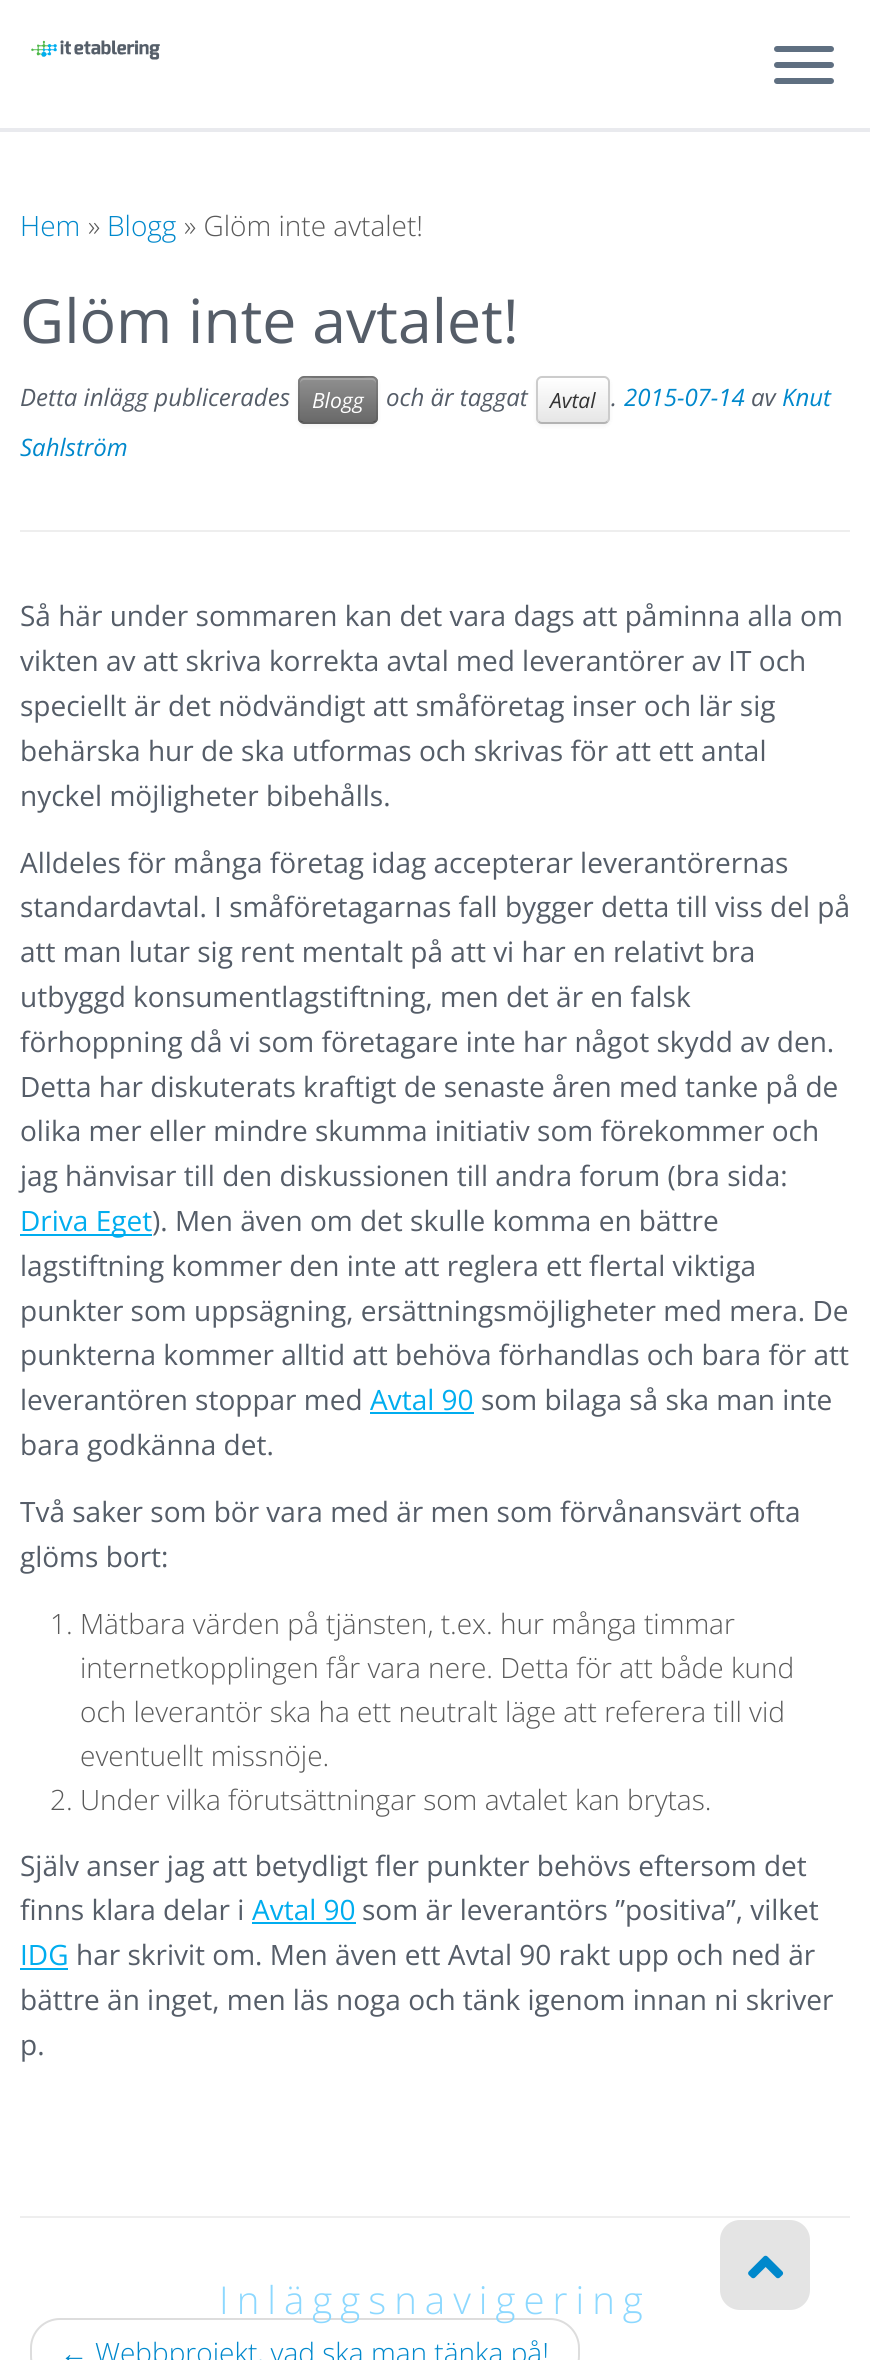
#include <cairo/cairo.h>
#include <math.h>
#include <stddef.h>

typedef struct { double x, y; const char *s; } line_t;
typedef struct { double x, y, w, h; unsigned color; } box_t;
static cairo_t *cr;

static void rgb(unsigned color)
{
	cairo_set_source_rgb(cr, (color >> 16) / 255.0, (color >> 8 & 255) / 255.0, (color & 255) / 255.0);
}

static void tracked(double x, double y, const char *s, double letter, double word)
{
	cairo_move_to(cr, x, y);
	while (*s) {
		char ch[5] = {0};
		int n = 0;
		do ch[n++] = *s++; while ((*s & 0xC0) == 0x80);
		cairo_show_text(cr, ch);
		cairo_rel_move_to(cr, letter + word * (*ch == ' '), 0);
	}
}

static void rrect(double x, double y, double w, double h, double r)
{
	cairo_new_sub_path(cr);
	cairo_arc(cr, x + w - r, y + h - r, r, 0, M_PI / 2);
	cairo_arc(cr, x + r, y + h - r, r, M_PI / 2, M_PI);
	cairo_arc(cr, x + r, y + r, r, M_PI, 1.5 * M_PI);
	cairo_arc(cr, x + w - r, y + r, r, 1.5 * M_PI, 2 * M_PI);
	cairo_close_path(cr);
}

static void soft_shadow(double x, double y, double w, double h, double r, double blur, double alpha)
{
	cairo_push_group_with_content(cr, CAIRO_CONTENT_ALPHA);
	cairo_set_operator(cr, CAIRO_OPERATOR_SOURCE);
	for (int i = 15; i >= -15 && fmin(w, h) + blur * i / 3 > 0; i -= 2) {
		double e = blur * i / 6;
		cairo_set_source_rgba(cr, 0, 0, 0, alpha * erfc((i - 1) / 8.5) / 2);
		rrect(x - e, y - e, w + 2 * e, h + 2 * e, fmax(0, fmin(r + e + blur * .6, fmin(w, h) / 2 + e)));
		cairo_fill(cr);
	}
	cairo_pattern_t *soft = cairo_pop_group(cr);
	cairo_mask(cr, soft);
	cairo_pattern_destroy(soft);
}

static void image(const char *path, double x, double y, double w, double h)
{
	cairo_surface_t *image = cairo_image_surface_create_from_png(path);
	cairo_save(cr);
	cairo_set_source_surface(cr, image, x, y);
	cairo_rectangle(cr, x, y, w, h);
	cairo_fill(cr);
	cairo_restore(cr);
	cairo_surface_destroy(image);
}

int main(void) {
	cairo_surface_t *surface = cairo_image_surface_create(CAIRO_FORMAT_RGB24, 870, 2360);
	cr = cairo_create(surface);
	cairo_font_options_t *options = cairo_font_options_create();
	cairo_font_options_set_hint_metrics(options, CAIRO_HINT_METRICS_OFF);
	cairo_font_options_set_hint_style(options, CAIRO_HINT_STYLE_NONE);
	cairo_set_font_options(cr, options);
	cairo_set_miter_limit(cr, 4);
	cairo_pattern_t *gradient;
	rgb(0xffffff);
	cairo_paint(cr);
	rgb(0xe9eaee);
	cairo_rectangle(cr, 0, 128, 870, 4);
	cairo_fill(cr);
	image("img/1.png", 31, 40, 129, 20);
	rgb(0x5f6f81);
	rrect(774, 46, 60, 6, 3);
	cairo_fill(cr);
	rrect(774, 62, 60, 6, 3);
	cairo_fill(cr);
	rrect(774, 78, 60, 6, 3);
	cairo_fill(cr);
	rgb(0x000000);
	soft_shadow(298, 378, 80, 48, 6, 2, 0.05);
	rgb(0x808080);
	rrect(298, 376, 80, 48, 6);
	cairo_fill(cr);
	cairo_save(cr);
	rrect(298, 376, 80, 48, 6);
	cairo_clip(cr);
	gradient = cairo_pattern_create_linear(338, 378, 338, 422);
	cairo_pattern_add_color_stop_rgba(gradient, 0, 0.561, 0.561, 0.561, 1);
	cairo_pattern_add_color_stop_rgba(gradient, 1, 0.412, 0.412, 0.412, 1);
	cairo_set_source(cr, gradient);
	cairo_pattern_destroy(gradient);
	cairo_rectangle(cr, 298, 378, 80, 44);
	cairo_fill(cr);
	cairo_restore(cr);
	cairo_set_source_rgba(cr, 1, 1, 1, 0.2);
	cairo_new_path(cr);
	cairo_move_to(cr, 304, 380);
	cairo_line_to(cr, 372, 380);
	cairo_curve_to(cr, 374, 380, 376, 382, 376, 384);
	cairo_curve_to(cr, 376, 375, 369, 378, 361, 378);
	cairo_line_to(cr, 315, 378);
	cairo_curve_to(cr, 307, 378, 300, 375, 300, 384);
	cairo_curve_to(cr, 300, 382, 302, 380, 304, 380);
	cairo_close_path(cr);
	cairo_fill(cr);
	cairo_new_path(cr);
	cairo_move_to(cr, 375.5, 421.5);
	cairo_line_to(cr, 372.5, 423);
	cairo_line_to(cr, 303.5, 423);
	cairo_line_to(cr, 300.5, 421.5);
	cairo_set_source_rgba(cr, 0, 0, 0, 0.25);
	cairo_stroke(cr);
	cairo_new_path(cr);
	cairo_move_to(cr, 300.5, 421.5);
	cairo_curve_to(cr, 299.5, 420.5, 299, 419.5, 299, 418);
	cairo_line_to(cr, 299, 382);
	cairo_curve_to(cr, 299, 380.5, 299.5, 379.5, 300.5, 378.5);
	cairo_curve_to(cr, 301.5, 377.5, 302.5, 377, 304, 377);
	cairo_line_to(cr, 372, 377);
	cairo_curve_to(cr, 373.5, 377, 374.5, 377.5, 375.5, 378.5);
	cairo_curve_to(cr, 376.5, 379.5, 377, 380.5, 377, 382);
	cairo_line_to(cr, 377, 418);
	cairo_curve_to(cr, 377, 419.5, 376.5, 420.5, 375.5, 421.5);
	cairo_set_source_rgba(cr, 0, 0, 0, 0.1);
	cairo_stroke(cr);
	rgb(0x000000);
	soft_shadow(536, 378, 74, 48, 6, 2, 0.05);
	cairo_save(cr);
	rrect(536, 376, 74, 48, 6);
	cairo_clip(cr);
	gradient = cairo_pattern_create_linear(573, 378, 573, 422);
	cairo_pattern_add_color_stop_rgba(gradient, 0, 1, 1, 1, 1);
	cairo_pattern_add_color_stop_rgba(gradient, 1, 0.902, 0.902, 0.902, 1);
	cairo_set_source(cr, gradient);
	cairo_pattern_destroy(gradient);
	cairo_rectangle(cr, 536, 378, 74, 44);
	cairo_fill(cr);
	cairo_restore(cr);
	cairo_new_path(cr);
	cairo_move_to(cr, 607.5, 421.5);
	cairo_curve_to(cr, 606.5, 422.5, 605.5, 423, 604, 423);
	cairo_line_to(cr, 542, 423);
	cairo_curve_to(cr, 540.5, 423, 539.5, 422.5, 538.5, 421.5);
	rgb(0xb3b3b3);
	cairo_stroke(cr);
	cairo_new_path(cr);
	cairo_move_to(cr, 538.5, 421.5);
	cairo_curve_to(cr, 537.5, 420.5, 537, 419.5, 537, 418);
	cairo_line_to(cr, 537, 382);
	cairo_curve_to(cr, 537, 380.5, 537.5, 379.5, 538.5, 378.5);
	cairo_curve_to(cr, 539.5, 377.5, 540.5, 377, 542, 377);
	cairo_line_to(cr, 604, 377);
	cairo_curve_to(cr, 605.5, 377, 606.5, 377.5, 607.5, 378.5);
	cairo_curve_to(cr, 608.5, 379.5, 609, 380.5, 609, 382);
	cairo_line_to(cr, 609, 418);
	cairo_curve_to(cr, 609, 419.5, 608.5, 420.5, 607.5, 421.5);
	rgb(0xcccccc);
	cairo_stroke(cr);
	{
		static const box_t items[] = {
			{20, 530, 830, 2, 0xeeeeee},
			{20, 1234, 132, 2, 0x00adef},
			{370, 1412, 104, 2, 0x00adef},
			{252, 1922, 104, 2, 0x00adef},
			{20, 1968, 48, 2, 0x00adef},
			{20, 2216, 830, 2, 0xeeeeee},
		};
		for (size_t i = 0; i < sizeof items / sizeof *items; i++) {
			rgb(items[i].color);
			cairo_rectangle(cr, items[i].x, items[i].y, items[i].w, items[i].h);
			cairo_fill(cr);
		}
	}
	rrect(31, 2319, 548, 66, 29);
	rgb(0xdddddd);
	cairo_stroke(cr);
	rgb(0xe4e4e4);
	rrect(720, 2220, 90, 90, 20);
	cairo_fill(cr);
	image("img/2.png", 748, 2255, 36, 24);
	cairo_select_font_face(cr, "Open Sans Light", CAIRO_FONT_SLANT_NORMAL, CAIRO_FONT_WEIGHT_NORMAL);
	cairo_set_font_size(cr, 28);
	rgb(0x0088cc);
	cairo_move_to(cr, 20, 236);
	cairo_show_text(cr, "Hem");
	rgb(0x5a5a5a);
	cairo_move_to(cr, 88, 236);
	cairo_show_text(cr, "»");
	rgb(0x0088cc);
	cairo_move_to(cr, 107, 236);
	cairo_show_text(cr, "Blogg");
	rgb(0x5a5a5a);
	cairo_move_to(cr, 184, 236);
	cairo_show_text(cr, "» Glöm inte avtalet!");
	cairo_select_font_face(cr, "Open Sans", CAIRO_FONT_SLANT_NORMAL, CAIRO_FONT_WEIGHT_NORMAL);
	cairo_set_font_size(cr, 60.75);
	rgb(0x555d68);
	cairo_move_to(cr, 20, 343);
	cairo_show_text(cr, "Glöm inte avtalet!");
	cairo_select_font_face(cr, "Open Sans", CAIRO_FONT_SLANT_ITALIC, CAIRO_FONT_WEIGHT_NORMAL);
	cairo_set_font_size(cr, 24);
	cairo_move_to(cr, 20, 406);
	cairo_show_text(cr, "Detta inlägg publicerades");
	cairo_set_font_size(cr, 21);
	rgb(0xffffff);
	cairo_move_to(cr, 312, 408);
	cairo_show_text(cr, "Blogg");
	cairo_set_font_size(cr, 24);
	rgb(0x555d68);
	cairo_move_to(cr, 386, 406);
	cairo_show_text(cr, "och är taggat");
	cairo_set_font_size(cr, 21);
	rgb(0x333333);
	cairo_move_to(cr, 550, 408);
	cairo_show_text(cr, "Avtal");
	cairo_set_font_size(cr, 24);
	rgb(0x555d68);
	cairo_move_to(cr, 611, 406);
	cairo_show_text(cr, ".");
	rgb(0x0088cc);
	cairo_move_to(cr, 624, 406);
	cairo_show_text(cr, "2015-07-14");
	rgb(0x555d68);
	cairo_move_to(cr, 751, 406);
	cairo_show_text(cr, "av");
	rgb(0x0088cc);
	cairo_move_to(cr, 782, 406);
	cairo_show_text(cr, "Knut");
	cairo_move_to(cr, 20, 456);
	cairo_show_text(cr, "Sahlström");
	cairo_select_font_face(cr, "Open Sans", CAIRO_FONT_SLANT_NORMAL, CAIRO_FONT_WEIGHT_NORMAL);
	cairo_set_font_size(cr, 28);
	rgb(0x555d68);
	{
		static const line_t items[] = {
			{20, 626, "Så här under sommaren kan det vara dags att påminna alla om"},
			{20, 671, "vikten av att skriva korrekta avtal med leverantörer av IT och"},
			{20, 716, "speciellt är det nödvändigt att småföretag inser och lär sig"},
			{20, 761, "behärska hur de ska utformas och skrivas för att ett antal"},
			{20, 806, "nyckel möjligheter bibehålls."},
			{20, 873, "Alldeles för många företag idag accepterar leverantörernas"},
			{20, 917, "standardavtal. I småföretagarnas fall bygger detta till viss del på"},
			{20, 962, "att man lutar sig rent mentalt på att vi har en relativt bra"},
			{20, 1007, "utbyggd konsumentlagstiftning, men det är en falsk"},
			{20, 1052, "förhoppning då vi som företagare inte har något skydd av den."},
			{20, 1097, "Detta har diskuterats kraftigt de senaste åren med tanke på de"},
			{20, 1141, "olika mer eller mindre skumma initiativ som förekommer och"},
			{20, 1186, "jag hänvisar till den diskussionen till andra forum (bra sida:"},
		};
		for (size_t i = 0; i < sizeof items / sizeof *items; i++) {
			cairo_move_to(cr, items[i].x, items[i].y);
			cairo_show_text(cr, items[i].s);
		}
	}
	rgb(0x00adef);
	cairo_move_to(cr, 20, 1231);
	cairo_show_text(cr, "Driva Eget");
	rgb(0x555d68);
	{
		static const line_t items[] = {
			{152, 1231, "). Men även om det skulle komma en bättre"},
			{20, 1276, "lagstiftning kommer den inte att reglera ett flertal viktiga"},
			{20, 1321, "punkter som uppsägning, ersättningsmöjligheter med mera. De"},
			{20, 1365, "punkterna kommer alltid att behöva förhandlas och bara för att"},
			{20, 1410, "leverantören stoppar med"},
		};
		for (size_t i = 0; i < sizeof items / sizeof *items; i++) {
			cairo_move_to(cr, items[i].x, items[i].y);
			cairo_show_text(cr, items[i].s);
		}
	}
	rgb(0x00adef);
	cairo_move_to(cr, 370, 1410);
	cairo_show_text(cr, "Avtal 90");
	rgb(0x555d68);
	{
		static const line_t items[] = {
			{481, 1410, "som bilaga så ska man inte"},
			{20, 1455, "bara godkänna det."},
			{20, 1522, "Två saker som bör vara med är men som förvånansvärt ofta"},
			{20, 1567, "glöms bort:"},
		};
		for (size_t i = 0; i < sizeof items / sizeof *items; i++) {
			cairo_move_to(cr, items[i].x, items[i].y);
			cairo_show_text(cr, items[i].s);
		}
	}
	cairo_select_font_face(cr, "Open Sans Light", CAIRO_FONT_SLANT_NORMAL, CAIRO_FONT_WEIGHT_NORMAL);
	rgb(0x5a5a5a);
	{
		static const line_t items[] = {
			{50, 1634, "1. Mätbara värden på tjänsten, t.ex. hur många timmar"},
			{80, 1678, "internetkopplingen får vara nere. Detta för att både kund"},
			{80, 1722, "och leverantör ska ha ett neutralt läge att referera till vid"},
			{80, 1766, "eventuellt missnöje."},
			{50, 1810, "2. Under vilka förutsättningar som avtalet kan brytas."},
		};
		for (size_t i = 0; i < sizeof items / sizeof *items; i++) {
			cairo_move_to(cr, items[i].x, items[i].y);
			cairo_show_text(cr, items[i].s);
		}
	}
	cairo_select_font_face(cr, "Open Sans", CAIRO_FONT_SLANT_NORMAL, CAIRO_FONT_WEIGHT_NORMAL);
	rgb(0x555d68);
	cairo_move_to(cr, 20, 1876);
	cairo_show_text(cr, "Själv anser jag att betydligt fler punkter behövs eftersom det");
	cairo_move_to(cr, 20, 1920);
	cairo_show_text(cr, "finns klara delar i");
	rgb(0x00adef);
	cairo_move_to(cr, 252, 1920);
	cairo_show_text(cr, "Avtal 90");
	rgb(0x555d68);
	cairo_move_to(cr, 362, 1920);
	cairo_show_text(cr, "som är leverantörs ”positiva”, vilket");
	rgb(0x00adef);
	cairo_move_to(cr, 20, 1965);
	cairo_show_text(cr, "IDG");
	rgb(0x555d68);
	{
		static const line_t items[] = {
			{76, 1965, "har skrivit om. Men även ett Avtal 90 rakt upp och ned är"},
			{20, 2010, "bättre än inget, men läs noga och tänk igenom innan ni skriver"},
			{20, 2055, "p."},
		};
		for (size_t i = 0; i < sizeof items / sizeof *items; i++) {
			cairo_move_to(cr, items[i].x, items[i].y);
			cairo_show_text(cr, items[i].s);
		}
	}
	cairo_select_font_face(cr, "Open Sans Light", CAIRO_FONT_SLANT_NORMAL, CAIRO_FONT_WEIGHT_NORMAL);
	cairo_set_font_size(cr, 38.4);
	rgb(0x8cd8ff);
	tracked(219, 2314, "Inläggsnavigering", 8, 0);
	cairo_select_font_face(cr, "Liberation Serif", CAIRO_FONT_SLANT_NORMAL, CAIRO_FONT_WEIGHT_NORMAL);
	cairo_set_font_size(cr, 28);
	rgb(0x0088cc);
	cairo_move_to(cr, 60, 2363);
	cairo_show_text(cr, "←");
	cairo_select_font_face(cr, "Open Sans Light", CAIRO_FONT_SLANT_NORMAL, CAIRO_FONT_WEIGHT_NORMAL);
	cairo_move_to(cr, 95, 2363);
	cairo_show_text(cr, "Webbprojekt, vad ska man tänka på!");
	cairo_surface_write_to_png(surface, "page.png");
	cairo_font_options_destroy(options);
	cairo_destroy(cr);
	cairo_surface_destroy(surface);
	return 0;
}
